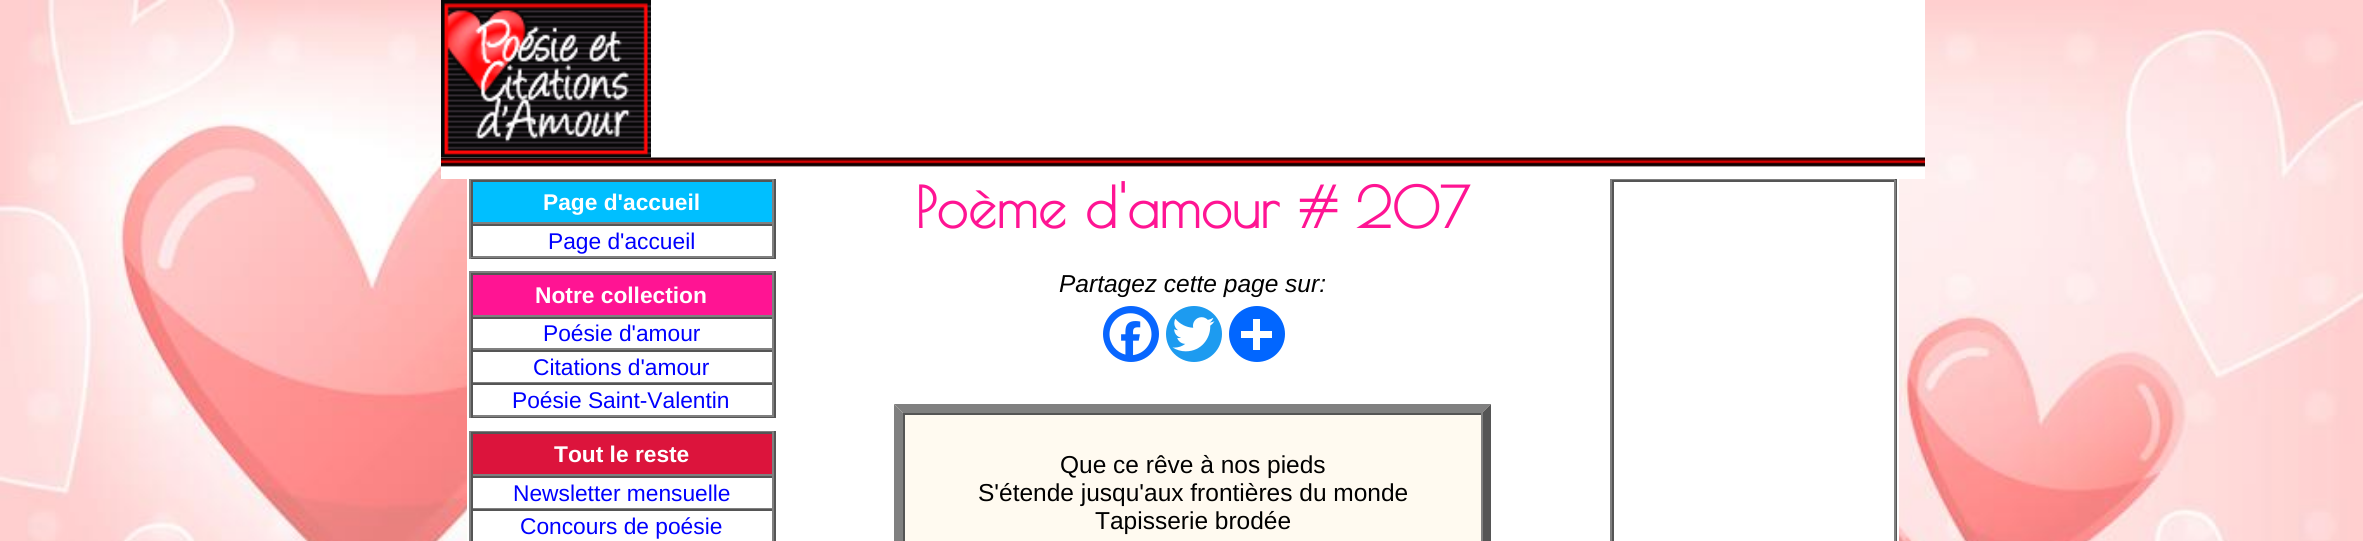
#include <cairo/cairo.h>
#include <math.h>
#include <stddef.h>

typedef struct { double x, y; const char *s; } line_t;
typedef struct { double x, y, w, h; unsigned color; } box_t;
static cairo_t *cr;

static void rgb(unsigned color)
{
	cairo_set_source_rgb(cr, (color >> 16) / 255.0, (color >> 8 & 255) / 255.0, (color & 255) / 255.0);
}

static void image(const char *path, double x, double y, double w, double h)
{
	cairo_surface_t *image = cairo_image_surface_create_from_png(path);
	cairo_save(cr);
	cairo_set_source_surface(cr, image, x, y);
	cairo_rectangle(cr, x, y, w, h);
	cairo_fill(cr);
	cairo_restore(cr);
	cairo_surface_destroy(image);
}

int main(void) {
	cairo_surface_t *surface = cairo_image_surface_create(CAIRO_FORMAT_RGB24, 2363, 541);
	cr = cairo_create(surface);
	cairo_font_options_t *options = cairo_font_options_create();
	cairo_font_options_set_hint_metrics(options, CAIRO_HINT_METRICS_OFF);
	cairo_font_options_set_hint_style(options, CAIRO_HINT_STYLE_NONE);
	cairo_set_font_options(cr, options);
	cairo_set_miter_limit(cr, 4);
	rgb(0xffffff);
	cairo_paint(cr);
	image("img/1.png", 0, 0, 2363, 541);
	rgb(0xffffff);
	cairo_rectangle(cr, 441, 0, 1484, 179);
	cairo_fill(cr);
	image("img/2.png", 441, 0, 210, 158);
	image("img/3.png", 441, 157, 1484, 10);
	{
		static const box_t items[] = {
			{467, 179, 1432, 362, 0xffffff},
			{469, 179, 306, 1, 0x808080},
			{774, 179, 2, 80, 0x555555},
			{469, 257, 306, 2, 0x555555},
			{469, 179, 2, 80, 0x808080},
			{473, 182, 299, 40, 0x00bfff},
			{471, 180, 303, 2, 0x555555},
			{772, 180, 2, 44, 0x808080},
			{471, 222, 303, 2, 0x808080},
			{471, 180, 2, 44, 0x555555},
			{471, 224, 303, 2, 0x555555},
			{772, 224, 2, 33, 0x808080},
			{471, 256, 303, 2, 0x808080},
			{471, 224, 2, 33, 0x555555},
			{469, 271, 306, 2, 0x808080},
			{774, 271, 2, 147, 0x555555},
			{469, 417, 306, 1, 0x555555},
			{469, 271, 2, 147, 0x808080},
			{473, 275, 299, 40, 0xff1493},
			{471, 273, 303, 2, 0x555555},
			{772, 273, 2, 44, 0x808080},
			{471, 315, 303, 2, 0x808080},
			{471, 273, 2, 44, 0x555555},
			{471, 317, 303, 2, 0x555555},
			{772, 317, 2, 33, 0x808080},
			{471, 348, 303, 2, 0x808080},
			{471, 317, 2, 33, 0x555555},
			{471, 350, 303, 2, 0x555555},
			{772, 350, 2, 33, 0x808080},
			{471, 382, 303, 1, 0x808080},
			{471, 350, 2, 33, 0x555555},
			{471, 383, 303, 2, 0x555555},
			{772, 383, 2, 34, 0x808080},
			{471, 415, 303, 2, 0x808080},
			{471, 383, 2, 34, 0x555555},
			{469, 431, 306, 1, 0x808080},
			{774, 431, 2, 110, 0x555555},
			{469, 431, 2, 110, 0x808080},
			{473, 434, 299, 40, 0xdc143c},
			{471, 432, 303, 2, 0x555555},
			{772, 432, 2, 44, 0x808080},
			{471, 474, 303, 2, 0x808080},
			{471, 432, 2, 44, 0x555555},
			{471, 476, 303, 2, 0x555555},
			{772, 476, 2, 33, 0x808080},
			{471, 508, 303, 1, 0x808080},
			{471, 476, 2, 33, 0x555555},
			{471, 509, 303, 2, 0x555555},
			{772, 509, 2, 32, 0x808080},
			{471, 509, 2, 32, 0x555555},
		};
		for (size_t i = 0; i < sizeof items / sizeof *items; i++) {
			rgb(items[i].color);
			cairo_rectangle(cr, items[i].x, items[i].y, items[i].w, items[i].h);
			cairo_fill(cr);
		}
	}
	rgb(0x0866ff);
	cairo_arc(cr, 1131, 334, 28, 0, 2 * M_PI);
	cairo_fill(cr);
	image("img/4.png", 1109, 313, 43, 43);
	rgb(0x1d9bf0);
	cairo_arc(cr, 1194, 334, 28, 0, 2 * M_PI);
	cairo_fill(cr);
	image("img/5.png", 1172, 317, 43, 35);
	rgb(0x0166ff);
	cairo_arc(cr, 1257, 334, 28, 0, 2 * M_PI);
	cairo_fill(cr);
	{
		static const box_t items[] = {
			{1253, 319, 7, 31, 0xffffff},
			{1241, 331, 31, 7, 0xffffff},
			{894, 404, 597, 137, 0xfffaf0},
		};
		for (size_t i = 0; i < sizeof items / sizeof *items; i++) {
			rgb(items[i].color);
			cairo_rectangle(cr, items[i].x, items[i].y, items[i].w, items[i].h);
			cairo_fill(cr);
		}
	}
	rgb(0x808080);
	cairo_new_path(cr);
	cairo_move_to(cr, 894, 404);
	cairo_line_to(cr, 1491, 404);
	cairo_line_to(cr, 1482, 413);
	cairo_line_to(cr, 903, 413);
	cairo_close_path(cr);
	cairo_fill(cr);
	rgb(0x555555);
	cairo_new_path(cr);
	cairo_move_to(cr, 1491, 404);
	cairo_line_to(cr, 1491, 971);
	cairo_line_to(cr, 1482, 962);
	cairo_line_to(cr, 1482, 413);
	cairo_close_path(cr);
	cairo_fill(cr);
	rgb(0x808080);
	cairo_new_path(cr);
	cairo_move_to(cr, 894, 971);
	cairo_line_to(cr, 894, 404);
	cairo_line_to(cr, 903, 413);
	cairo_line_to(cr, 903, 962);
	cairo_close_path(cr);
	cairo_fill(cr);
	{
		static const box_t items[] = {
			{903, 413, 579, 2, 0x555555},
			{1481, 413, 2, 128, 0x808080},
			{903, 413, 2, 128, 0x555555},
			{1610, 179, 287, 1, 0x808080},
			{1895, 179, 2, 362, 0x555555},
			{1610, 179, 2, 362, 0x808080},
			{1612, 180, 283, 2, 0x555555},
			{1894, 180, 2, 361, 0x808080},
			{1612, 180, 2, 361, 0x555555},
		};
		for (size_t i = 0; i < sizeof items / sizeof *items; i++) {
			rgb(items[i].color);
			cairo_rectangle(cr, items[i].x, items[i].y, items[i].w, items[i].h);
			cairo_fill(cr);
		}
	}
	cairo_select_font_face(cr, "Liberation Sans", CAIRO_FONT_SLANT_NORMAL, CAIRO_FONT_WEIGHT_BOLD);
	cairo_set_font_size(cr, 22.75);
	rgb(0xffffff);
	cairo_move_to(cr, 543, 210);
	cairo_show_text(cr, "Page d'accueil");
	cairo_select_font_face(cr, "Liberation Sans", CAIRO_FONT_SLANT_NORMAL, CAIRO_FONT_WEIGHT_NORMAL);
	rgb(0x0000ff);
	cairo_move_to(cr, 548, 249);
	cairo_show_text(cr, "Page d'accueil");
	cairo_select_font_face(cr, "Liberation Sans", CAIRO_FONT_SLANT_NORMAL, CAIRO_FONT_WEIGHT_BOLD);
	rgb(0xffffff);
	cairo_move_to(cr, 535, 303);
	cairo_show_text(cr, "Notre collection");
	cairo_select_font_face(cr, "Liberation Sans", CAIRO_FONT_SLANT_NORMAL, CAIRO_FONT_WEIGHT_NORMAL);
	rgb(0x0000ff);
	{
		static const line_t items[] = {
			{543, 341, "Poésie d'amour"},
			{533, 375, "Citations d'amour"},
			{512, 408, "Poésie Saint-Valentin"},
		};
		for (size_t i = 0; i < sizeof items / sizeof *items; i++) {
			cairo_move_to(cr, items[i].x, items[i].y);
			cairo_show_text(cr, items[i].s);
		}
	}
	cairo_select_font_face(cr, "Liberation Sans", CAIRO_FONT_SLANT_NORMAL, CAIRO_FONT_WEIGHT_BOLD);
	rgb(0xffffff);
	cairo_move_to(cr, 554, 462);
	cairo_show_text(cr, "Tout le reste");
	cairo_select_font_face(cr, "Liberation Sans", CAIRO_FONT_SLANT_NORMAL, CAIRO_FONT_WEIGHT_NORMAL);
	rgb(0x0000ff);
	cairo_move_to(cr, 513, 501);
	cairo_show_text(cr, "Newsletter mensuelle");
	cairo_move_to(cr, 520, 534);
	cairo_show_text(cr, "Concours de poésie");
	cairo_select_font_face(cr, "Poiret One", CAIRO_FONT_SLANT_NORMAL, CAIRO_FONT_WEIGHT_BOLD);
	cairo_set_font_size(cr, 56);
	rgb(0xff1493);
	cairo_move_to(cr, 915, 228);
	cairo_show_text(cr, "Poème d'amour # 207");
	cairo_select_font_face(cr, "Liberation Sans", CAIRO_FONT_SLANT_ITALIC, CAIRO_FONT_WEIGHT_NORMAL);
	cairo_set_font_size(cr, 24.5);
	rgb(0x000000);
	cairo_move_to(cr, 1059, 292);
	cairo_show_text(cr, "Partagez cette page sur:");
	cairo_select_font_face(cr, "Liberation Sans", CAIRO_FONT_SLANT_NORMAL, CAIRO_FONT_WEIGHT_NORMAL);
	{
		static const line_t items[] = {
			{1060, 473, "Que ce rêve à nos pieds"},
			{978, 501, "S'étende jusqu'aux frontières du monde"},
			{1095, 529, "Tapisserie brodée"},
		};
		for (size_t i = 0; i < sizeof items / sizeof *items; i++) {
			cairo_move_to(cr, items[i].x, items[i].y);
			cairo_show_text(cr, items[i].s);
		}
	}
	cairo_surface_write_to_png(surface, "page.png");
	cairo_font_options_destroy(options);
	cairo_destroy(cr);
	cairo_surface_destroy(surface);
	return 0;
}
